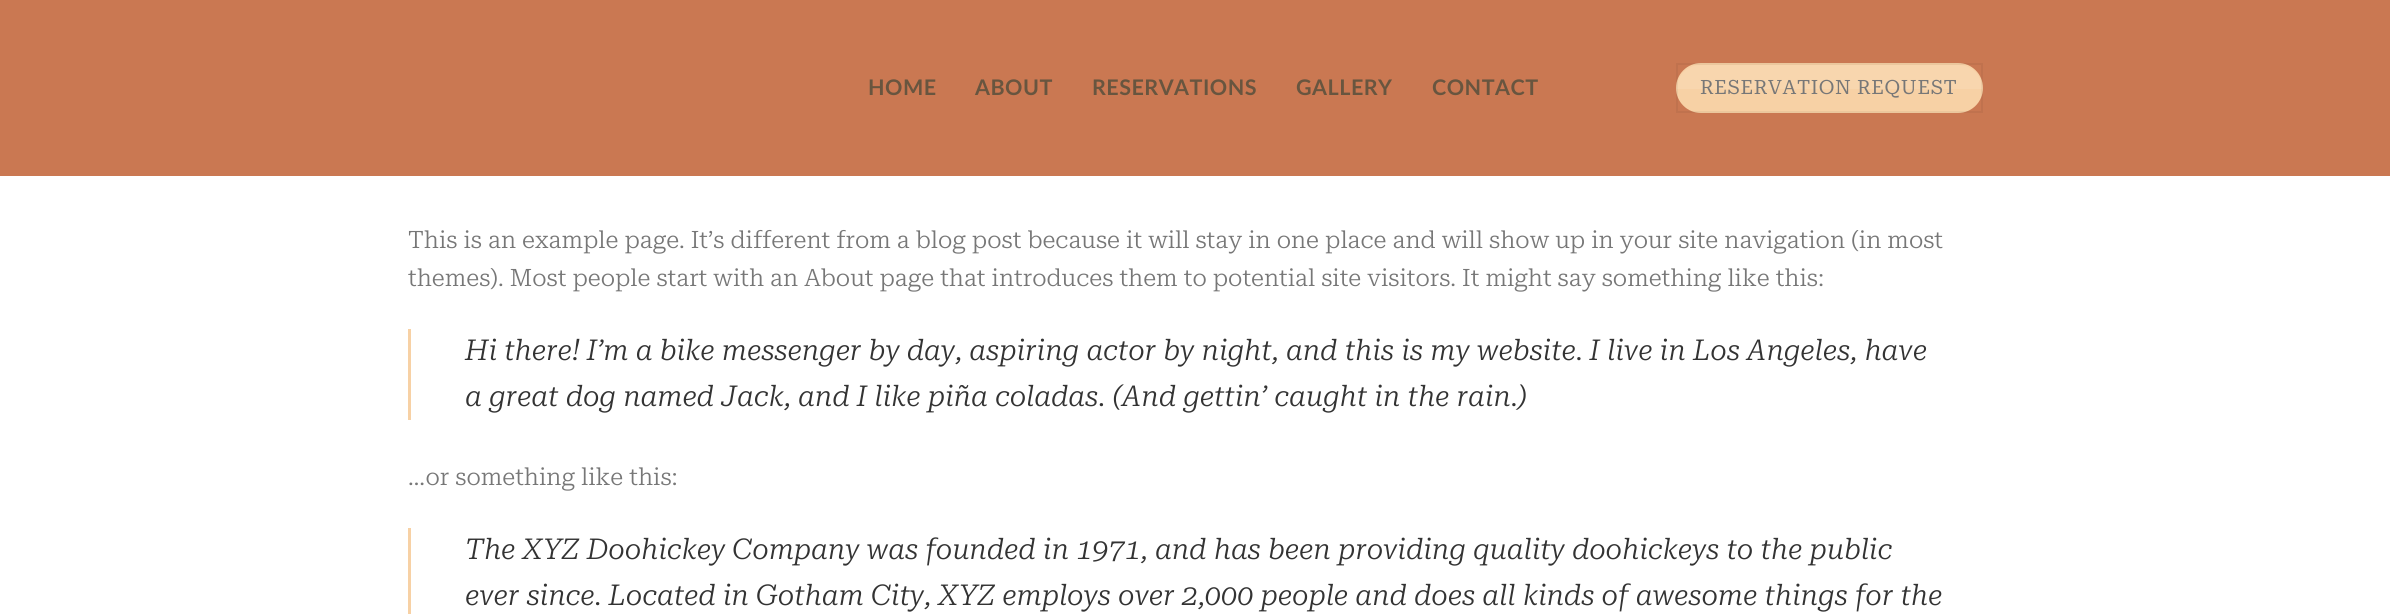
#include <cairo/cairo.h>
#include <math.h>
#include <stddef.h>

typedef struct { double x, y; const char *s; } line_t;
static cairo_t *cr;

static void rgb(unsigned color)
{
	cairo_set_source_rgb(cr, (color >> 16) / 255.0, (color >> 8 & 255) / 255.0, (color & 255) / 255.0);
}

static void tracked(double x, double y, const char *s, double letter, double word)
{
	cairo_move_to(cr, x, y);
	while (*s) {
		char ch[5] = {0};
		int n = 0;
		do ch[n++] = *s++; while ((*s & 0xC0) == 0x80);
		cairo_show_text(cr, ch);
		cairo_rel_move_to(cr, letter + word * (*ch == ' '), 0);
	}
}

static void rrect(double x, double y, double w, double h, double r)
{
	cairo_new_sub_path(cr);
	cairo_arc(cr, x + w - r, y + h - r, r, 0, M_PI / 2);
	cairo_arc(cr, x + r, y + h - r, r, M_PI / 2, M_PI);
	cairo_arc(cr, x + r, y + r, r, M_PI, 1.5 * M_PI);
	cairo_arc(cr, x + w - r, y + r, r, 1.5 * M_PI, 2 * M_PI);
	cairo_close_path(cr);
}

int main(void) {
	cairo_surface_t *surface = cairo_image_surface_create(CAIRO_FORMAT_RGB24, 2390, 614);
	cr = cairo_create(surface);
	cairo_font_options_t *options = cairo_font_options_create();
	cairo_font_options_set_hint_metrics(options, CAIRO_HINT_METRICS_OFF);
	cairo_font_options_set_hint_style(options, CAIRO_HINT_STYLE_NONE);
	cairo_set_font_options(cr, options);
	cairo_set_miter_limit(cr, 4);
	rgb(0xffffff);
	cairo_paint(cr);
	rgb(0xca7852);
	cairo_rectangle(cr, 0, 0, 2390, 176);
	cairo_fill(cr);
	rgb(0xf7d1a5);
	rrect(1676, 63, 307, 50, 25);
	cairo_fill(cr);
	cairo_rectangle(cr, 1677, 64, 305, 48);
	cairo_set_source_rgba(cr, 0, 0, 0, 0.05);
	cairo_stroke(cr);
	cairo_set_source_rgba(cr, 1, 1, 1, 0.1);
	cairo_new_path(cr);
	cairo_move_to(cr, 1700, 65);
	cairo_line_to(cr, 1959, 65);
	cairo_curve_to(cr, 1971.5, 65, 1982, 75.5, 1982, 88);
	cairo_line_to(cr, 1982, 89);
	cairo_line_to(cr, 1677, 89);
	cairo_line_to(cr, 1677, 88);
	cairo_curve_to(cr, 1677, 75.5, 1687.5, 65, 1700, 65);
	cairo_close_path(cr);
	cairo_fill(cr);
	rgb(0xf7d1a5);
	cairo_rectangle(cr, 408, 329, 3, 91);
	cairo_fill(cr);
	cairo_rectangle(cr, 408, 528, 3, 86);
	cairo_fill(cr);
	cairo_select_font_face(cr, "Lato", CAIRO_FONT_SLANT_NORMAL, CAIRO_FONT_WEIGHT_BOLD);
	cairo_set_font_size(cr, 21.5);
	rgb(0x68553f);
	{
		static const line_t items[] = {
			{868, 95, "HOME"},
			{975, 95, "ABOUT"},
			{1092, 95, "RESERVATIONS"},
			{1296, 95, "GALLERY"},
			{1432, 95, "CONTACT"},
		};
		for (size_t i = 0; i < sizeof items / sizeof *items; i++) {
			tracked(items[i].x, items[i].y, items[i].s, 0.5, 0);
		}
	}
	cairo_select_font_face(cr, "Roboto Serif", CAIRO_FONT_SLANT_NORMAL, CAIRO_FONT_WEIGHT_NORMAL);
	cairo_set_font_size(cr, 19.75);
	rgb(0x777777);
	tracked(1700, 94, "RESERVATION REQUEST", 0.6, 0);
	cairo_select_font_face(cr, "Roboto Serif Light", CAIRO_FONT_SLANT_NORMAL, CAIRO_FONT_WEIGHT_NORMAL);
	cairo_set_font_size(cr, 24);
	cairo_move_to(cr, 408, 248);
	cairo_show_text(cr, "This is an example page. It’s different from a blog post because it will stay in one place and will show up in your site navigation (in most");
	cairo_move_to(cr, 408, 286);
	cairo_show_text(cr, "themes). Most people start with an About page that introduces them to potential site visitors. It might say something like this:");
	cairo_select_font_face(cr, "Roboto Serif Light", CAIRO_FONT_SLANT_ITALIC, CAIRO_FONT_WEIGHT_NORMAL);
	cairo_set_font_size(cr, 28.8);
	rgb(0x333333);
	cairo_move_to(cr, 465, 360);
	cairo_show_text(cr, "Hi there! I’m a bike messenger by day, aspiring actor by night, and this is my website. I live in Los Angeles, have");
	cairo_move_to(cr, 465, 406);
	cairo_show_text(cr, "a great dog named Jack, and I like piña coladas. (And gettin’ caught in the rain.)");
	cairo_select_font_face(cr, "Roboto Serif Light", CAIRO_FONT_SLANT_NORMAL, CAIRO_FONT_WEIGHT_NORMAL);
	cairo_set_font_size(cr, 24);
	rgb(0x777777);
	cairo_move_to(cr, 408, 485);
	cairo_show_text(cr, "…or something like this:");
	cairo_select_font_face(cr, "Roboto Serif Light", CAIRO_FONT_SLANT_ITALIC, CAIRO_FONT_WEIGHT_NORMAL);
	cairo_set_font_size(cr, 28.8);
	rgb(0x333333);
	cairo_move_to(cr, 465, 559);
	cairo_show_text(cr, "The XYZ Doohickey Company was founded in 1971, and has been providing quality doohickeys to the public");
	cairo_move_to(cr, 465, 605);
	cairo_show_text(cr, "ever since. Located in Gotham City, XYZ employs over 2,000 people and does all kinds of awesome things for the");
	cairo_surface_write_to_png(surface, "page.png");
	cairo_font_options_destroy(options);
	cairo_destroy(cr);
	cairo_surface_destroy(surface);
	return 0;
}
